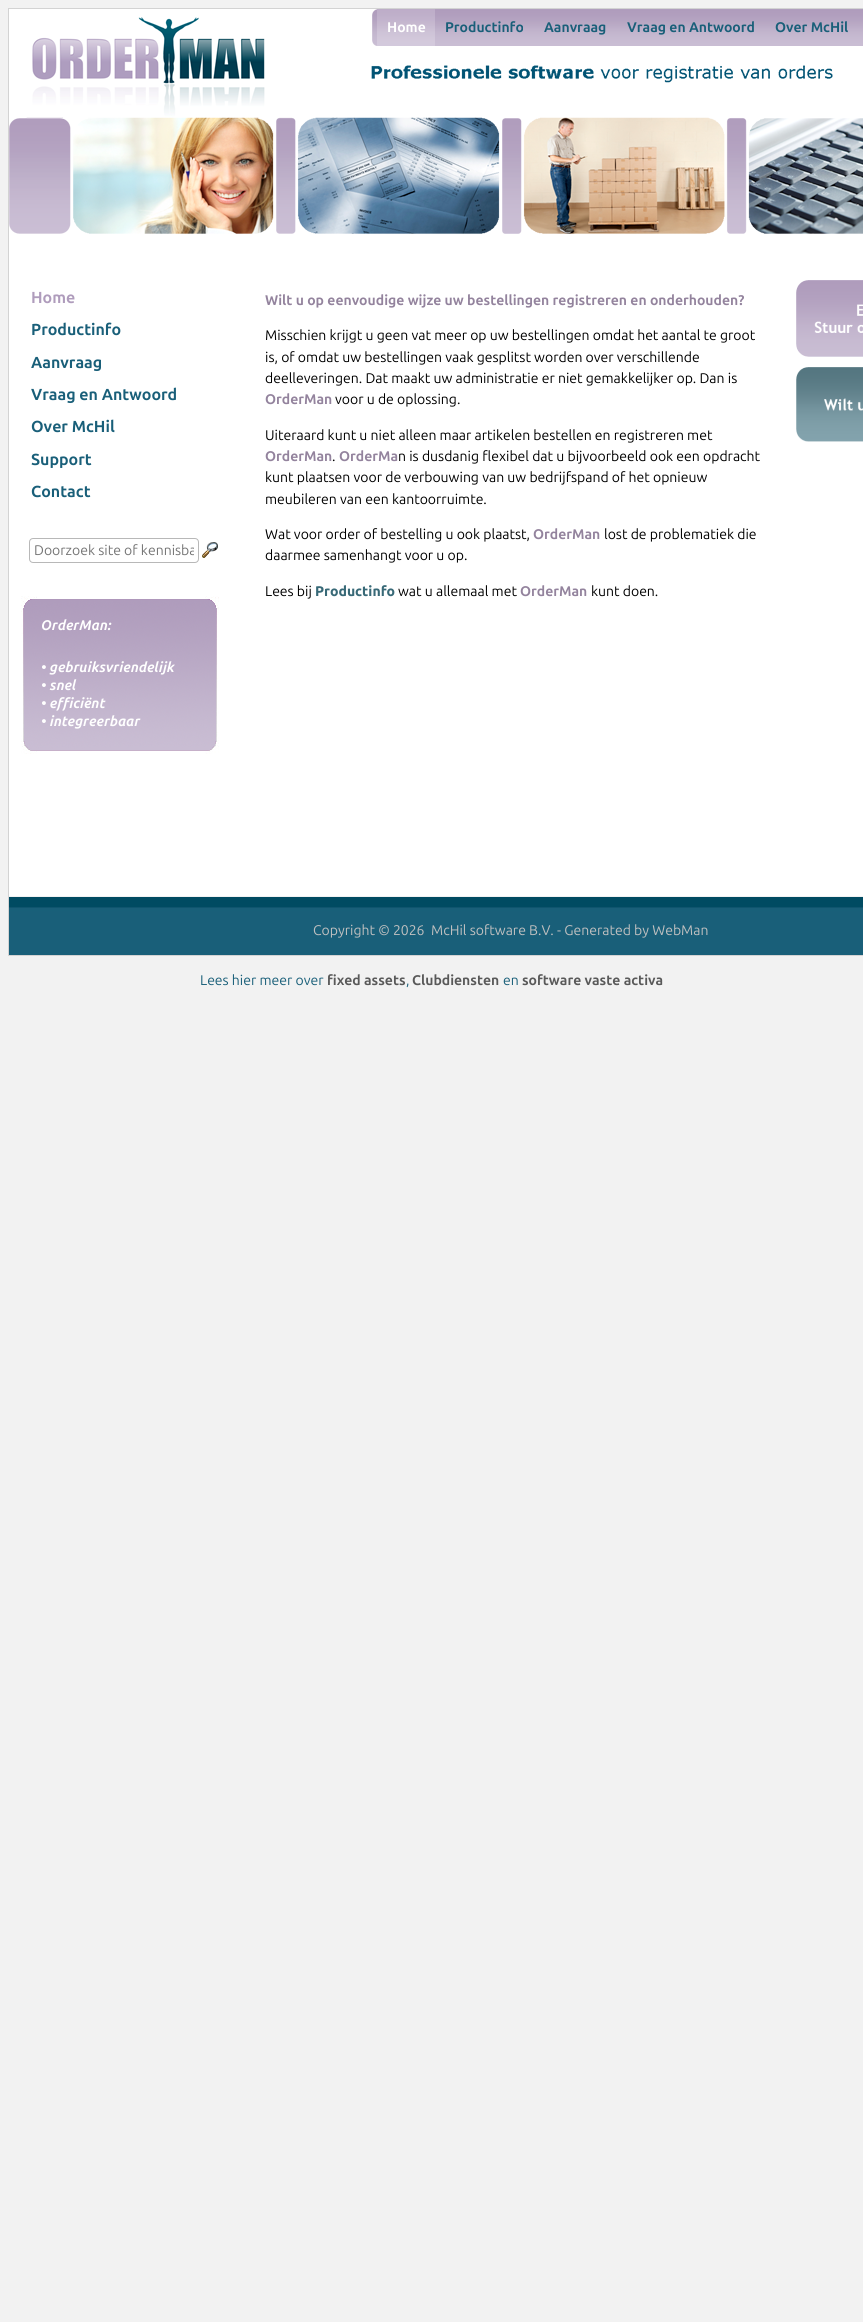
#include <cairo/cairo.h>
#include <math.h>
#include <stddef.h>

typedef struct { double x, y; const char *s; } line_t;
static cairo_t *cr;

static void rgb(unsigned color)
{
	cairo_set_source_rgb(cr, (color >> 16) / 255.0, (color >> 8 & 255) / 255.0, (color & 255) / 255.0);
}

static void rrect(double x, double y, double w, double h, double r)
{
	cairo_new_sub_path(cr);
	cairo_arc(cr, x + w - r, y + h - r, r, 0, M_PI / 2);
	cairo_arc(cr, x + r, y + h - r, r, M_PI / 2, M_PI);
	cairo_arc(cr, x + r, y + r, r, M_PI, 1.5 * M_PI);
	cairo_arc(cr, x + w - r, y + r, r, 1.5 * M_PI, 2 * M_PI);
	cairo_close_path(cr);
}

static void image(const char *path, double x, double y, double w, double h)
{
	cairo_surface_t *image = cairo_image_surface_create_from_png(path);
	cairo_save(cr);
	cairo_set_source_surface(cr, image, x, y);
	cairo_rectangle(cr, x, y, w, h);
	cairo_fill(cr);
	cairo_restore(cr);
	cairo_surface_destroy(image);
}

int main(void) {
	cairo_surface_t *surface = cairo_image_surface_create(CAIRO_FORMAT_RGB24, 863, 2322);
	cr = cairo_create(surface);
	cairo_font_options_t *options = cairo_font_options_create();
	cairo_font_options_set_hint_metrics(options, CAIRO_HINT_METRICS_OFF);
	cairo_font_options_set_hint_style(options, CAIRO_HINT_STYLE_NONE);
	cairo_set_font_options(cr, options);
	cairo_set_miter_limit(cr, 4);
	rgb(0xf2f2f2);
	cairo_paint(cr);
	cairo_rectangle(cr, 8.5, 8.5, 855, 947);
	rgb(0xd3d3d3);
	cairo_set_line_width(cr, 1);
	cairo_stroke(cr);
	rgb(0xffffff);
	cairo_rectangle(cr, 9, 9, 854, 887);
	cairo_fill(cr);
	image("img/1.png", 9, 17, 854, 217);
	image("img/2.png", 372, 9, 5, 37);
	image("img/3.png", 377, 9, 486, 37);
	image("img/4.png", 377, 10, 58, 36);
	rgb(0xb09fbe);
	cairo_rectangle(cr, 435, 9, 428, 1);
	cairo_fill(cr);
	rrect(29.5, 538.5, 169, 24, 3.5);
	rgb(0xb8b8b8);
	cairo_stroke(cr);
	image("img/5.png", 202, 542, 16, 16);
	image("img/6.png", 21, 596, 198, 158);
	image("img/7.png", 796, 280, 67, 77);
	image("img/8.png", 796, 367, 67, 75);
	image("img/9.png", 9, 897, 854, 58);
	cairo_select_font_face(cr, "Ubuntu", CAIRO_FONT_SLANT_NORMAL, CAIRO_FONT_WEIGHT_BOLD);
	cairo_set_font_size(cr, 14);
	rgb(0xffffff);
	cairo_move_to(cr, 387, 32);
	cairo_show_text(cr, "Home");
	rgb(0x195f79);
	{
		static const line_t items[] = {
			{445, 32, "Productinfo"},
			{544, 32, "Aanvraag"},
			{627, 32, "Vraag en Antwoord"},
			{775, 32, "Over McHil"},
		};
		for (size_t i = 0; i < sizeof items / sizeof *items; i++) {
			cairo_move_to(cr, items[i].x, items[i].y);
			cairo_show_text(cr, items[i].s);
		}
	}
	cairo_set_font_size(cr, 16);
	rgb(0xaf9cbc);
	cairo_move_to(cr, 31, 303);
	cairo_show_text(cr, "Home");
	rgb(0x195f79);
	{
		static const line_t items[] = {
			{31, 335, "Productinfo"},
			{31, 368, "Aanvraag"},
			{31, 400, "Vraag en Antwoord"},
			{31, 432, "Over McHil"},
			{31, 465, "Support"},
			{31, 497, "Contact"},
		};
		for (size_t i = 0; i < sizeof items / sizeof *items; i++) {
			cairo_move_to(cr, items[i].x, items[i].y);
			cairo_show_text(cr, items[i].s);
		}
	}
	cairo_save(cr);
	cairo_rectangle(cr, 34, 542, 160, 16);
	cairo_clip(cr);
	cairo_select_font_face(cr, "Ubuntu", CAIRO_FONT_SLANT_NORMAL, CAIRO_FONT_WEIGHT_NORMAL);
	cairo_set_font_size(cr, 14);
	rgb(0x757575);
	cairo_move_to(cr, 34, 555);
	cairo_show_text(cr, "Doorzoek site of kennisba");
	cairo_restore(cr);
	cairo_select_font_face(cr, "Ubuntu", CAIRO_FONT_SLANT_ITALIC, CAIRO_FONT_WEIGHT_BOLD);
	cairo_set_font_size(cr, 14);
	rgb(0xffffff);
	{
		static const line_t items[] = {
			{41, 630, "OrderMan:"},
			{41, 672, "• gebruiksvriendelijk"},
			{41, 690, "• snel"},
			{41, 708, "• efficiënt"},
			{41, 726, "• integreerbaar"},
		};
		for (size_t i = 0; i < sizeof items / sizeof *items; i++) {
			cairo_move_to(cr, items[i].x, items[i].y);
			cairo_show_text(cr, items[i].s);
		}
	}
	cairo_select_font_face(cr, "Ubuntu", CAIRO_FONT_SLANT_NORMAL, CAIRO_FONT_WEIGHT_BOLD);
	rgb(0x93839d);
	cairo_move_to(cr, 265, 305);
	cairo_show_text(cr, "Wilt u op eenvoudige wijze uw bestellingen registreren en onderhouden?");
	cairo_select_font_face(cr, "Ubuntu", CAIRO_FONT_SLANT_NORMAL, CAIRO_FONT_WEIGHT_NORMAL);
	rgb(0x000000);
	{
		static const line_t items[] = {
			{265, 340, "Misschien krijgt u geen vat meer op uw bestellingen omdat het aantal te groot"},
			{265, 362, "is, of omdat uw bestellingen vaak gesplitst worden over verschillende"},
			{265, 383, "deelleveringen. Dat maakt uw administratie er niet gemakkelijker op. Dan is"},
		};
		for (size_t i = 0; i < sizeof items / sizeof *items; i++) {
			cairo_move_to(cr, items[i].x, items[i].y);
			cairo_show_text(cr, items[i].s);
		}
	}
	cairo_select_font_face(cr, "Ubuntu", CAIRO_FONT_SLANT_NORMAL, CAIRO_FONT_WEIGHT_BOLD);
	rgb(0x93839d);
	cairo_move_to(cr, 265, 404);
	cairo_show_text(cr, "OrderMan");
	cairo_select_font_face(cr, "Ubuntu", CAIRO_FONT_SLANT_NORMAL, CAIRO_FONT_WEIGHT_NORMAL);
	rgb(0x000000);
	cairo_move_to(cr, 335, 404);
	cairo_show_text(cr, "voor u de oplossing.");
	cairo_move_to(cr, 265, 440);
	cairo_show_text(cr, "Uiteraard kunt u niet alleen maar artikelen bestellen en registreren met");
	cairo_select_font_face(cr, "Ubuntu", CAIRO_FONT_SLANT_NORMAL, CAIRO_FONT_WEIGHT_BOLD);
	rgb(0x93839d);
	cairo_move_to(cr, 265, 461);
	cairo_show_text(cr, "OrderMan");
	cairo_select_font_face(cr, "Ubuntu", CAIRO_FONT_SLANT_NORMAL, CAIRO_FONT_WEIGHT_NORMAL);
	rgb(0x000000);
	cairo_move_to(cr, 332, 461);
	cairo_show_text(cr, ".");
	cairo_select_font_face(cr, "Ubuntu", CAIRO_FONT_SLANT_NORMAL, CAIRO_FONT_WEIGHT_BOLD);
	rgb(0x93839d);
	cairo_move_to(cr, 339, 461);
	cairo_show_text(cr, "OrderMa");
	cairo_select_font_face(cr, "Ubuntu", CAIRO_FONT_SLANT_NORMAL, CAIRO_FONT_WEIGHT_NORMAL);
	rgb(0x000000);
	{
		static const line_t items[] = {
			{398, 461, "n is dusdanig flexibel dat u bijvoorbeeld ook een opdracht"},
			{265, 482, "kunt plaatsen voor de verbouwing van uw bedrijfspand of het opnieuw"},
			{265, 504, "meubileren van een kantoorruimte."},
			{265, 539, "Wat voor order of bestelling u ook plaatst,"},
		};
		for (size_t i = 0; i < sizeof items / sizeof *items; i++) {
			cairo_move_to(cr, items[i].x, items[i].y);
			cairo_show_text(cr, items[i].s);
		}
	}
	cairo_select_font_face(cr, "Ubuntu", CAIRO_FONT_SLANT_NORMAL, CAIRO_FONT_WEIGHT_BOLD);
	rgb(0x93839d);
	cairo_move_to(cr, 533, 539);
	cairo_show_text(cr, "OrderMan");
	cairo_select_font_face(cr, "Ubuntu", CAIRO_FONT_SLANT_NORMAL, CAIRO_FONT_WEIGHT_NORMAL);
	rgb(0x000000);
	{
		static const line_t items[] = {
			{604, 539, "lost de problematiek die"},
			{265, 560, "daarmee samenhangt voor u op."},
			{265, 596, "Lees bij"},
		};
		for (size_t i = 0; i < sizeof items / sizeof *items; i++) {
			cairo_move_to(cr, items[i].x, items[i].y);
			cairo_show_text(cr, items[i].s);
		}
	}
	cairo_select_font_face(cr, "Ubuntu ExtraBold", CAIRO_FONT_SLANT_NORMAL, CAIRO_FONT_WEIGHT_NORMAL);
	rgb(0x386977);
	cairo_move_to(cr, 315, 596);
	cairo_show_text(cr, "Productinfo");
	cairo_select_font_face(cr, "Ubuntu", CAIRO_FONT_SLANT_NORMAL, CAIRO_FONT_WEIGHT_NORMAL);
	rgb(0x000000);
	cairo_move_to(cr, 398, 596);
	cairo_show_text(cr, "wat u allemaal met");
	cairo_select_font_face(cr, "Ubuntu", CAIRO_FONT_SLANT_NORMAL, CAIRO_FONT_WEIGHT_BOLD);
	rgb(0x93839d);
	cairo_move_to(cr, 520, 596);
	cairo_show_text(cr, "OrderMan");
	cairo_select_font_face(cr, "Ubuntu", CAIRO_FONT_SLANT_NORMAL, CAIRO_FONT_WEIGHT_NORMAL);
	rgb(0x000000);
	cairo_move_to(cr, 591, 596);
	cairo_show_text(cr, "kunt doen.");
	rgb(0xc0c0c0);
	cairo_move_to(cr, 313, 935);
	cairo_show_text(cr, "Copyright © 2026");
	cairo_move_to(cr, 431, 935);
	cairo_show_text(cr, "McHil software B.V. - Generated by WebMan");
	rgb(0x195f79);
	cairo_move_to(cr, 200, 985);
	cairo_show_text(cr, "Lees hier meer over");
	cairo_select_font_face(cr, "Ubuntu", CAIRO_FONT_SLANT_NORMAL, CAIRO_FONT_WEIGHT_BOLD);
	rgb(0x595959);
	cairo_move_to(cr, 327, 985);
	cairo_show_text(cr, "fixed assets");
	cairo_select_font_face(cr, "Ubuntu", CAIRO_FONT_SLANT_NORMAL, CAIRO_FONT_WEIGHT_NORMAL);
	rgb(0x195f79);
	cairo_move_to(cr, 406, 985);
	cairo_show_text(cr, ",");
	cairo_select_font_face(cr, "Ubuntu", CAIRO_FONT_SLANT_NORMAL, CAIRO_FONT_WEIGHT_BOLD);
	rgb(0x595959);
	cairo_move_to(cr, 412, 985);
	cairo_show_text(cr, "Clubdiensten");
	cairo_select_font_face(cr, "Ubuntu", CAIRO_FONT_SLANT_NORMAL, CAIRO_FONT_WEIGHT_NORMAL);
	rgb(0x195f79);
	cairo_move_to(cr, 503, 985);
	cairo_show_text(cr, "en");
	cairo_select_font_face(cr, "Ubuntu", CAIRO_FONT_SLANT_NORMAL, CAIRO_FONT_WEIGHT_BOLD);
	rgb(0x595959);
	cairo_move_to(cr, 522, 985);
	cairo_show_text(cr, "software vaste activa");
	cairo_surface_write_to_png(surface, "page.png");
	cairo_font_options_destroy(options);
	cairo_destroy(cr);
	cairo_surface_destroy(surface);
	return 0;
}
